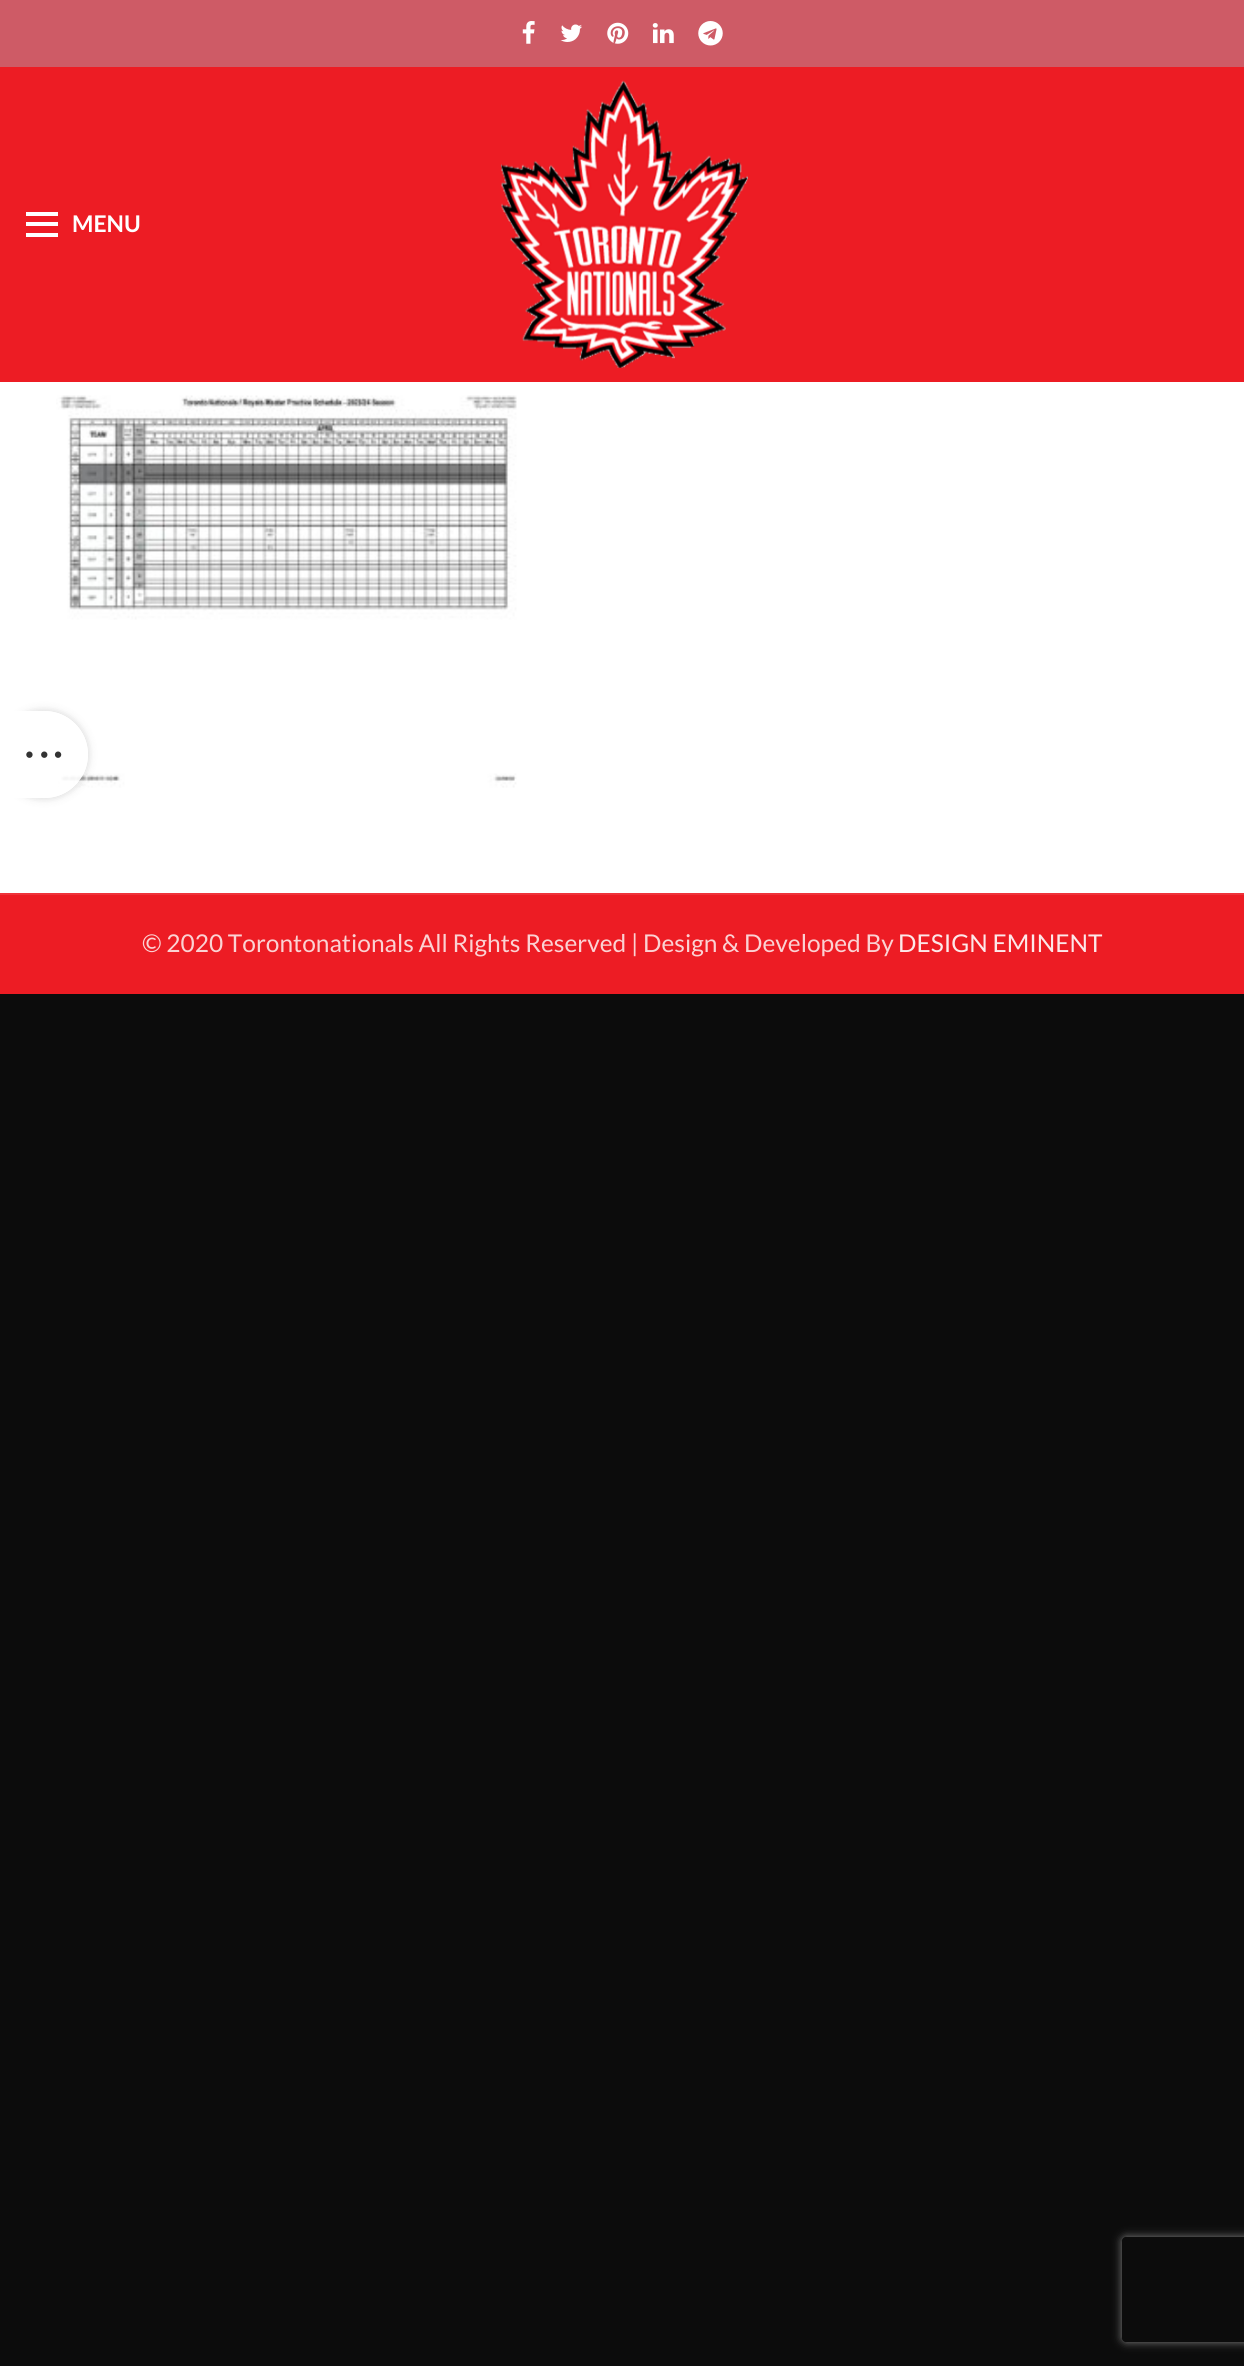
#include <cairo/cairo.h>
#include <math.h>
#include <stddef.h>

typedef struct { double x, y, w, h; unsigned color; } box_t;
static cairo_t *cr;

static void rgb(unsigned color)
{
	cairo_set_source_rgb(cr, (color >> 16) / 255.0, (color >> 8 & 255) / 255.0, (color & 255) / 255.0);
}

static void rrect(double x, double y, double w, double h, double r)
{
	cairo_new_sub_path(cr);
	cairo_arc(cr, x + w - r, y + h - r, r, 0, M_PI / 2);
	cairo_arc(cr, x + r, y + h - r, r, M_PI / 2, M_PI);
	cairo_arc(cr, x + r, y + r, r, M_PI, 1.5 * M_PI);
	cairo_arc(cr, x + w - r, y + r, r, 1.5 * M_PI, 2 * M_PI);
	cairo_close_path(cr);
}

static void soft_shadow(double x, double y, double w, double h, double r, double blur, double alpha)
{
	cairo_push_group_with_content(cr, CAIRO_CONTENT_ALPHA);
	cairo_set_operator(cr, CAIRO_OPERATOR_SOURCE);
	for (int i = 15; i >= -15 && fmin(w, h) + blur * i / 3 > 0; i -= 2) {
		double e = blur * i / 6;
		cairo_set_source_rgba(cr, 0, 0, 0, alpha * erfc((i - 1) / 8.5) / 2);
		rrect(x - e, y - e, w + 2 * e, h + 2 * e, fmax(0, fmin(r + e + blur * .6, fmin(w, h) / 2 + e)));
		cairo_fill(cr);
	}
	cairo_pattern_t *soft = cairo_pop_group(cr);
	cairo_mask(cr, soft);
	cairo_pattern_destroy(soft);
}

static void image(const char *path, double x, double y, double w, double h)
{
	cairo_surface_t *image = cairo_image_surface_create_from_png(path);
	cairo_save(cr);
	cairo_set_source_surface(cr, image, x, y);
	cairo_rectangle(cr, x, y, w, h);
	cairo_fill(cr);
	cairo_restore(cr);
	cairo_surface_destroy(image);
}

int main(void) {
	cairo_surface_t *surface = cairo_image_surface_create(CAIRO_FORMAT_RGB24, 1244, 2366);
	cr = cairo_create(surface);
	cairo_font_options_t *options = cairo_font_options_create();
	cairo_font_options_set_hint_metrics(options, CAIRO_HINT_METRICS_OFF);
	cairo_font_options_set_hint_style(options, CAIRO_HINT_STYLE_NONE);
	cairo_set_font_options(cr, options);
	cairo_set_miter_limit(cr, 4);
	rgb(0x0c0c0c);
	cairo_paint(cr);
	rgb(0xffffff);
	cairo_rectangle(cr, 0, 382, 1244, 511);
	cairo_fill(cr);
	image("img/8.png", 56, 395, 461, 393);
	cairo_save(cr);
	cairo_set_fill_rule(cr, CAIRO_FILL_RULE_EVEN_ODD);
	cairo_new_path(cr);
	cairo_move_to(cr, 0, 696);
	cairo_line_to(cr, 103, 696);
	cairo_line_to(cr, 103, 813);
	cairo_line_to(cr, 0, 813);
	cairo_close_path(cr);
	cairo_move_to(cr, 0, 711);
	cairo_line_to(cr, 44.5, 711);
	cairo_curve_to(cr, 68.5, 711, 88, 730.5, 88, 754.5);
	cairo_curve_to(cr, 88, 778.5, 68.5, 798, 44.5, 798);
	cairo_line_to(cr, 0, 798);
	cairo_close_path(cr);
	cairo_clip(cr);
	rgb(0x000000);
	soft_shadow(0, 711, 88, 87, 43.5, 4.5, 0.17);
	cairo_restore(cr);
	cairo_set_source_rgba(cr, 1, 1, 1, 0.9);
	cairo_new_path(cr);
	cairo_move_to(cr, 0, 711);
	cairo_line_to(cr, 44.5, 711);
	cairo_curve_to(cr, 68.5, 711, 88, 730.5, 88, 754.5);
	cairo_curve_to(cr, 88, 778.5, 68.5, 798, 44.5, 798);
	cairo_line_to(cr, 0, 798);
	cairo_close_path(cr);
	cairo_fill(cr);
	image("img/1.png", 26, 751, 36, 7);
	rgb(0xce5b66);
	cairo_rectangle(cr, 0, 0, 1244, 67);
	cairo_fill(cr);
	image("img/2.png", 522, 21, 13, 23);
	image("img/3.png", 560, 24, 22, 18);
	image("img/4.png", 607, 22, 22, 22);
	image("img/5.png", 652, 23, 22, 21);
	image("img/6.png", 698, 21, 25, 25);
	{
		static const box_t items[] = {
			{0, 67, 1244, 315, 0xed1c24},
			{26, 222, 32, 4, 0xffffff},
			{26, 212, 32, 4, 0xffffff},
			{26, 233, 32, 4, 0xffffff},
		};
		for (size_t i = 0; i < sizeof items / sizeof *items; i++) {
			rgb(items[i].color);
			cairo_rectangle(cr, items[i].x, items[i].y, items[i].w, items[i].h);
			cairo_fill(cr);
		}
	}
	image("img/7.png", 500, 80, 248, 288);
	rgb(0xed1c24);
	cairo_rectangle(cr, 0, 895, 1244, 99);
	cairo_fill(cr);
	rgb(0xef333a);
	cairo_rectangle(cr, 0, 893, 1244, 2);
	cairo_fill(cr);
	cairo_save(cr);
	cairo_set_fill_rule(cr, CAIRO_FILL_RULE_EVEN_ODD);
	cairo_new_path(cr);
	cairo_move_to(cr, 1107, 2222);
	cairo_line_to(cr, 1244, 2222);
	cairo_line_to(cr, 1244, 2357);
	cairo_line_to(cr, 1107, 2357);
	cairo_close_path(cr);
	cairo_move_to(cr, 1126, 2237);
	cairo_line_to(cr, 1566, 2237);
	cairo_curve_to(cr, 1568, 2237, 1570, 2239, 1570, 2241);
	cairo_line_to(cr, 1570, 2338);
	cairo_curve_to(cr, 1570, 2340, 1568, 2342, 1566, 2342);
	cairo_line_to(cr, 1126, 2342);
	cairo_curve_to(cr, 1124, 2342, 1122, 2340, 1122, 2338);
	cairo_line_to(cr, 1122, 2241);
	cairo_curve_to(cr, 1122, 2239, 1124, 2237, 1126, 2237);
	cairo_close_path(cr);
	cairo_clip(cr);
	rgb(0x808080);
	soft_shadow(1122, 2237, 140, 105, 4, 4.5, 1);
	cairo_restore(cr);
	cairo_select_font_face(cr, "Lato", CAIRO_FONT_SLANT_NORMAL, CAIRO_FONT_WEIGHT_BOLD);
	cairo_set_font_size(cr, 23);
	rgb(0xffffff);
	cairo_move_to(cr, 72, 232);
	cairo_show_text(cr, "MENU");
	cairo_select_font_face(cr, "Lato", CAIRO_FONT_SLANT_NORMAL, CAIRO_FONT_WEIGHT_NORMAL);
	cairo_set_font_size(cr, 24.5);
	rgb(0xfbd2d3);
	cairo_move_to(cr, 142, 952);
	cairo_show_text(cr, "© 2020 Torontonationals All Rights Reserved | Design & Developed By");
	rgb(0xfde8e9);
	cairo_move_to(cr, 898, 952);
	cairo_show_text(cr, "DESIGN EMINENT");
	cairo_surface_write_to_png(surface, "page.png");
	cairo_font_options_destroy(options);
	cairo_destroy(cr);
	cairo_surface_destroy(surface);
	return 0;
}
